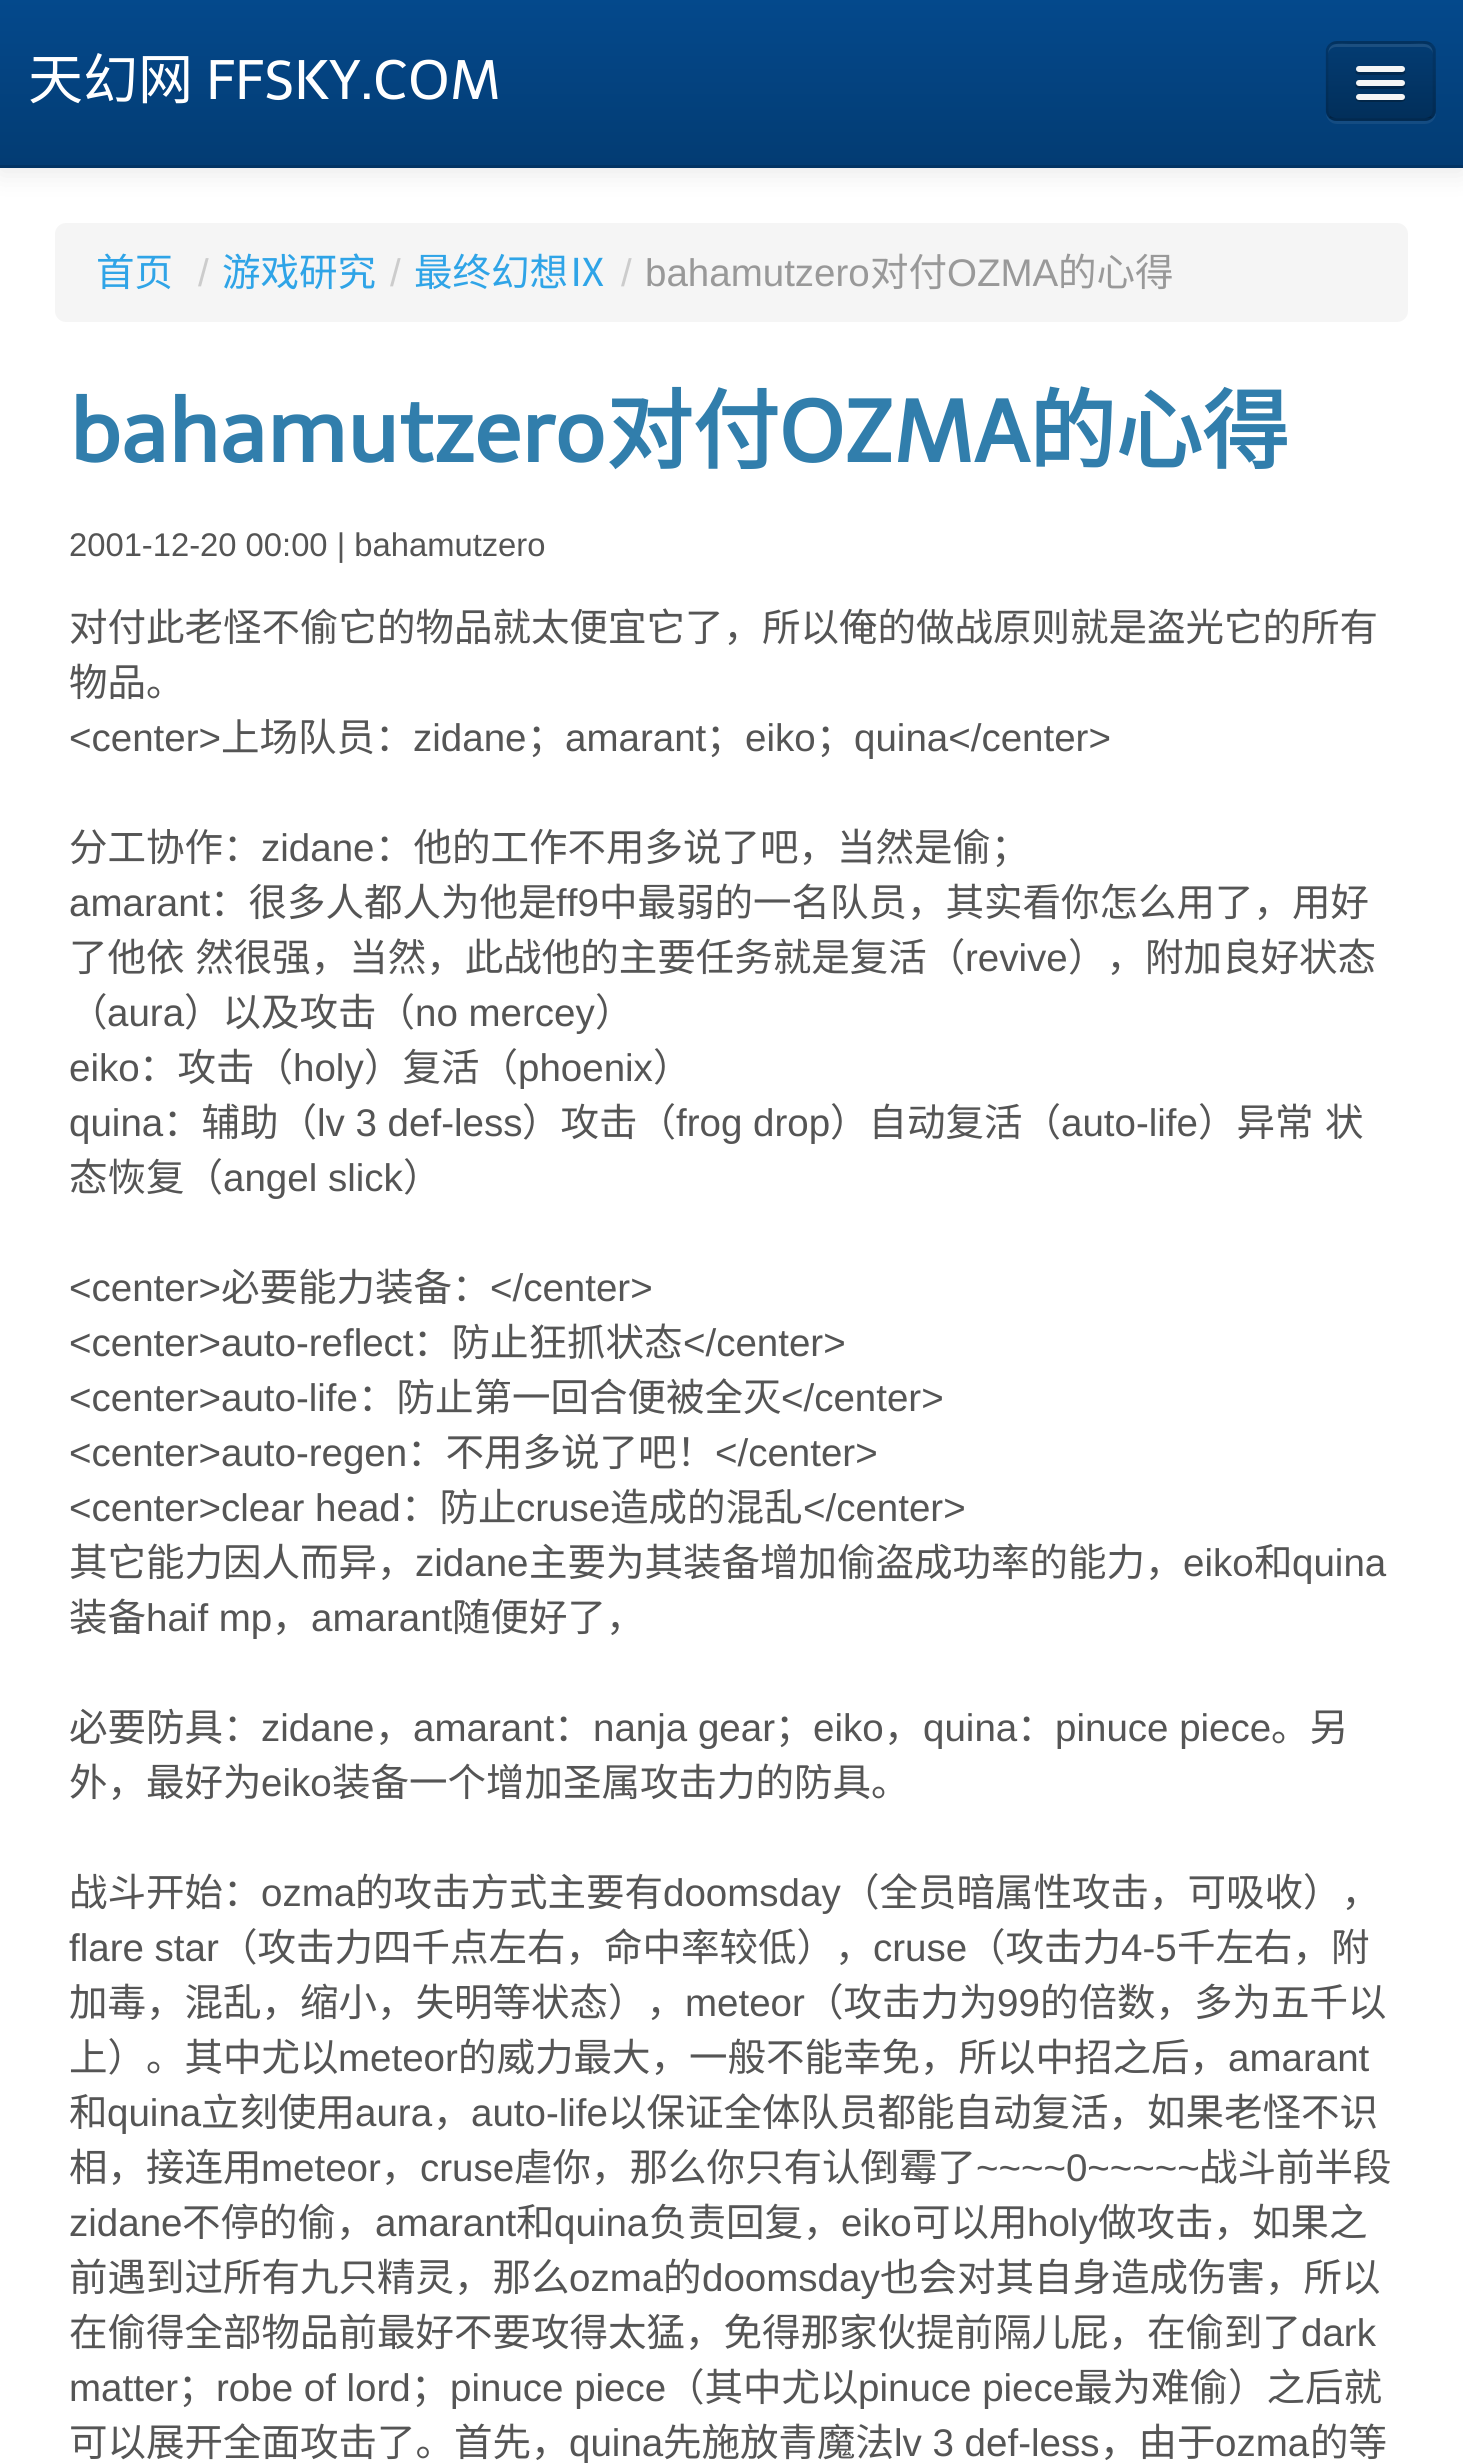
#include <cairo/cairo.h>
#include <math.h>
#include <stddef.h>

typedef struct { double x, y; const char *s; } line_t;
static cairo_t *cr;

static void rgb(unsigned color)
{
	cairo_set_source_rgb(cr, (color >> 16) / 255.0, (color >> 8 & 255) / 255.0, (color & 255) / 255.0);
}

static void tracked(double x, double y, const char *s, double letter, double word)
{
	cairo_move_to(cr, x, y);
	while (*s) {
		char ch[5] = {0};
		int n = 0;
		do ch[n++] = *s++; while ((*s & 0xC0) == 0x80);
		cairo_show_text(cr, ch);
		cairo_rel_move_to(cr, letter + word * (*ch == ' '), 0);
	}
}

static void rrect(double x, double y, double w, double h, double r)
{
	cairo_new_sub_path(cr);
	cairo_arc(cr, x + w - r, y + h - r, r, 0, M_PI / 2);
	cairo_arc(cr, x + r, y + h - r, r, M_PI / 2, M_PI);
	cairo_arc(cr, x + r, y + r, r, M_PI, 1.5 * M_PI);
	cairo_arc(cr, x + w - r, y + r, r, 1.5 * M_PI, 2 * M_PI);
	cairo_close_path(cr);
}

static void soft_shadow(double x, double y, double w, double h, double r, double blur, double alpha)
{
	cairo_push_group_with_content(cr, CAIRO_CONTENT_ALPHA);
	cairo_set_operator(cr, CAIRO_OPERATOR_SOURCE);
	for (int i = 15; i >= -15 && fmin(w, h) + blur * i / 3 > 0; i -= 2) {
		double e = blur * i / 6;
		cairo_set_source_rgba(cr, 0, 0, 0, alpha * erfc((i - 1) / 8.5) / 2);
		rrect(x - e, y - e, w + 2 * e, h + 2 * e, fmax(0, fmin(r + e + blur * .6, fmin(w, h) / 2 + e)));
		cairo_fill(cr);
	}
	cairo_pattern_t *soft = cairo_pop_group(cr);
	cairo_mask(cr, soft);
	cairo_pattern_destroy(soft);
}

int main(void) {
	cairo_surface_t *surface = cairo_image_surface_create(CAIRO_FORMAT_RGB24, 1463, 2463);
	cr = cairo_create(surface);
	cairo_font_options_t *options = cairo_font_options_create();
	cairo_font_options_set_hint_metrics(options, CAIRO_HINT_METRICS_OFF);
	cairo_font_options_set_hint_style(options, CAIRO_HINT_STYLE_NONE);
	cairo_set_font_options(cr, options);
	cairo_set_miter_limit(cr, 4);
	cairo_pattern_t *gradient;
	rgb(0xffffff);
	cairo_paint(cr);
	rgb(0x000000);
	soft_shadow(0, 3, 1463, 168, 0, 14, 0.1);
	gradient = cairo_pattern_create_linear(732, 0, 732, 165);
	cairo_pattern_add_color_stop_rgba(gradient, 0, 0.016, 0.286, 0.549, 1);
	cairo_pattern_add_color_stop_rgba(gradient, 1, 0.012, 0.235, 0.451, 1);
	cairo_set_source(cr, gradient);
	cairo_pattern_destroy(gradient);
	cairo_rectangle(cr, 0, 0, 1463, 165);
	cairo_fill(cr);
	rgb(0x033464);
	cairo_rectangle(cr, 0, 165, 1463, 3);
	cairo_fill(cr);
	cairo_set_source_rgba(cr, 1, 1, 1, 0.07);
	cairo_new_path(cr);
	cairo_move_to(cr, 1326, 113);
	cairo_curve_to(cr, 1326, 119, 1331, 124, 1337, 124);
	cairo_line_to(cr, 1425, 124);
	cairo_curve_to(cr, 1431, 124, 1436, 119, 1436, 113);
	cairo_line_to(cr, 1436, 55);
	cairo_line_to(cr, 1435, 52);
	cairo_line_to(cr, 1436, 110);
	cairo_curve_to(cr, 1436, 116, 1431, 121, 1424, 121);
	cairo_line_to(cr, 1336, 121);
	cairo_curve_to(cr, 1332, 121, 1327, 118, 1326, 113);
	cairo_close_path(cr);
	cairo_fill(cr);
	rgb(0x033769);
	rrect(1326, 41, 110, 80, 11);
	cairo_fill(cr);
	cairo_save(cr);
	rrect(1326, 41, 110, 80, 11);
	cairo_clip(cr);
	gradient = cairo_pattern_create_linear(1381, 44, 1381, 118);
	cairo_pattern_add_color_stop_rgba(gradient, 0, 0.012, 0.235, 0.451, 1);
	cairo_pattern_add_color_stop_rgba(gradient, 1, 0.008, 0.184, 0.353, 1);
	cairo_set_source(cr, gradient);
	cairo_pattern_destroy(gradient);
	cairo_rectangle(cr, 1326, 44, 110, 74);
	cairo_fill(cr);
	cairo_restore(cr);
	rgb(0x1c4f80);
	cairo_new_path(cr);
	cairo_move_to(cr, 1336, 47);
	cairo_line_to(cr, 1424, 47);
	cairo_curve_to(cr, 1429, 47, 1433, 50, 1433, 55);
	cairo_curve_to(cr, 1433, 41, 1422, 44, 1410, 44);
	cairo_line_to(cr, 1351, 44);
	cairo_curve_to(cr, 1339, 44, 1328, 41, 1328, 55);
	cairo_curve_to(cr, 1328, 50, 1332, 47, 1336, 47);
	cairo_close_path(cr);
	cairo_fill(cr);
	cairo_new_path(cr);
	cairo_move_to(cr, 1431.5, 117);
	cairo_curve_to(cr, 1429.5, 118.5, 1427, 119.5, 1424.5, 119.5);
	cairo_line_to(cr, 1336.5, 119.5);
	cairo_curve_to(cr, 1334, 119.5, 1331.5, 118.5, 1329.5, 117);
	cairo_set_source_rgba(cr, 0, 0, 0, 0.25);
	cairo_set_line_width(cr, 2.8);
	cairo_stroke(cr);
	cairo_new_path(cr);
	cairo_move_to(cr, 1329.5, 117);
	cairo_curve_to(cr, 1328, 115, 1327, 112.5, 1327, 110);
	cairo_line_to(cr, 1327, 52);
	cairo_curve_to(cr, 1327, 49.5, 1328, 47, 1329.5, 45.5);
	cairo_curve_to(cr, 1331.5, 43.5, 1334, 42.5, 1336.5, 42.5);
	cairo_line_to(cr, 1424.5, 42.5);
	cairo_curve_to(cr, 1427, 42.5, 1429.5, 43.5, 1431.5, 45.5);
	cairo_curve_to(cr, 1433, 47, 1434, 49.5, 1434, 52);
	cairo_line_to(cr, 1434, 110);
	cairo_curve_to(cr, 1434, 112.5, 1433, 115, 1431.5, 117);
	cairo_set_source_rgba(cr, 0, 0, 0, 0.1);
	cairo_stroke(cr);
	rgb(0x02294f);
	cairo_new_path(cr);
	cairo_move_to(cr, 1356, 71);
	cairo_curve_to(cr, 1353, 76, 1365, 75, 1366, 75);
	cairo_line_to(cr, 1395, 75);
	cairo_curve_to(cr, 1396, 75, 1408, 76, 1405, 71);
	cairo_line_to(cr, 1403, 71);
	cairo_line_to(cr, 1358, 71);
	cairo_close_path(cr);
	cairo_fill(cr);
	rgb(0xf5f5f5);
	rrect(1356, 66, 49, 6, 3);
	cairo_fill(cr);
	rgb(0x02274b);
	cairo_new_path(cr);
	cairo_move_to(cr, 1356, 84);
	cairo_curve_to(cr, 1353, 90, 1365, 89, 1366, 89);
	cairo_line_to(cr, 1395, 89);
	cairo_curve_to(cr, 1396, 89, 1408, 90, 1405, 84);
	cairo_line_to(cr, 1403, 85);
	cairo_line_to(cr, 1358, 85);
	cairo_close_path(cr);
	cairo_fill(cr);
	rgb(0xf5f5f5);
	rrect(1356, 80, 49, 6, 3);
	cairo_fill(cr);
	rgb(0x022648);
	cairo_new_path(cr);
	cairo_move_to(cr, 1356, 98);
	cairo_curve_to(cr, 1354, 103, 1365, 102, 1366, 102);
	cairo_line_to(cr, 1395, 102);
	cairo_curve_to(cr, 1396, 102, 1407, 103, 1405, 98);
	cairo_line_to(cr, 1403, 99);
	cairo_line_to(cr, 1358, 99);
	cairo_close_path(cr);
	cairo_fill(cr);
	rgb(0xf5f5f5);
	rrect(1356, 94, 49, 6, 3);
	cairo_fill(cr);
	rrect(55, 223, 1353, 99, 11);
	cairo_fill(cr);
	cairo_select_font_face(cr, "Noto Sans CJK SC", CAIRO_FONT_SLANT_NORMAL, CAIRO_FONT_WEIGHT_NORMAL);
	cairo_set_font_size(cr, 55);
	rgb(0xffffff);
	cairo_move_to(cr, 28, 99);
	cairo_show_text(cr, "天幻网");
	cairo_select_font_face(cr, "Telex", CAIRO_FONT_SLANT_NORMAL, CAIRO_FONT_WEIGHT_NORMAL);
	cairo_move_to(cr, 206, 99);
	cairo_show_text(cr, "FFSKY.COM");
	cairo_select_font_face(cr, "Noto Sans CJK SC", CAIRO_FONT_SLANT_NORMAL, CAIRO_FONT_WEIGHT_NORMAL);
	cairo_set_font_size(cr, 38.5);
	rgb(0x2fa4e7);
	cairo_move_to(cr, 96, 286);
	cairo_show_text(cr, "首页");
	cairo_select_font_face(cr, "Liberation Sans", CAIRO_FONT_SLANT_NORMAL, CAIRO_FONT_WEIGHT_NORMAL);
	rgb(0xcccccc);
	cairo_move_to(cr, 198, 286);
	cairo_show_text(cr, "/");
	cairo_select_font_face(cr, "Noto Sans CJK SC", CAIRO_FONT_SLANT_NORMAL, CAIRO_FONT_WEIGHT_NORMAL);
	rgb(0x2fa4e7);
	cairo_move_to(cr, 222, 286);
	cairo_show_text(cr, "游戏研究");
	cairo_select_font_face(cr, "Liberation Sans", CAIRO_FONT_SLANT_NORMAL, CAIRO_FONT_WEIGHT_NORMAL);
	rgb(0xcccccc);
	cairo_move_to(cr, 390, 286);
	cairo_show_text(cr, "/");
	cairo_select_font_face(cr, "Noto Sans CJK SC", CAIRO_FONT_SLANT_NORMAL, CAIRO_FONT_WEIGHT_NORMAL);
	rgb(0x2fa4e7);
	cairo_move_to(cr, 414, 286);
	cairo_show_text(cr, "最终幻想Ⅸ");
	cairo_select_font_face(cr, "Liberation Sans", CAIRO_FONT_SLANT_NORMAL, CAIRO_FONT_WEIGHT_NORMAL);
	rgb(0xcccccc);
	cairo_move_to(cr, 621, 286);
	cairo_show_text(cr, "/");
	rgb(0x999999);
	cairo_move_to(cr, 645, 286);
	cairo_show_text(cr, "bahamutzero");
	cairo_select_font_face(cr, "Noto Sans CJK SC", CAIRO_FONT_SLANT_NORMAL, CAIRO_FONT_WEIGHT_NORMAL);
	cairo_move_to(cr, 870, 286);
	cairo_show_text(cr, "对付");
	cairo_select_font_face(cr, "Liberation Sans", CAIRO_FONT_SLANT_NORMAL, CAIRO_FONT_WEIGHT_NORMAL);
	cairo_move_to(cr, 947, 286);
	cairo_show_text(cr, "OZMA");
	cairo_select_font_face(cr, "Noto Sans CJK SC", CAIRO_FONT_SLANT_NORMAL, CAIRO_FONT_WEIGHT_NORMAL);
	cairo_move_to(cr, 1058, 286);
	cairo_show_text(cr, "的心得");
	cairo_select_font_face(cr, "Telex", CAIRO_FONT_SLANT_NORMAL, CAIRO_FONT_WEIGHT_BOLD);
	cairo_set_font_size(cr, 86.5);
	rgb(0x317eac);
	cairo_move_to(cr, 69, 462);
	cairo_show_text(cr, "bahamutzero");
	cairo_select_font_face(cr, "Noto Sans CJK SC", CAIRO_FONT_SLANT_NORMAL, CAIRO_FONT_WEIGHT_BOLD);
	cairo_move_to(cr, 606, 462);
	cairo_show_text(cr, "对付");
	cairo_select_font_face(cr, "Telex", CAIRO_FONT_SLANT_NORMAL, CAIRO_FONT_WEIGHT_BOLD);
	cairo_move_to(cr, 779, 462);
	cairo_show_text(cr, "OZMA");
	cairo_select_font_face(cr, "Noto Sans CJK SC", CAIRO_FONT_SLANT_NORMAL, CAIRO_FONT_WEIGHT_BOLD);
	cairo_move_to(cr, 1029, 462);
	cairo_show_text(cr, "的心得");
	cairo_select_font_face(cr, "Liberation Sans", CAIRO_FONT_SLANT_NORMAL, CAIRO_FONT_WEIGHT_NORMAL);
	cairo_set_font_size(cr, 32.75);
	rgb(0x555555);
	cairo_move_to(cr, 69, 556);
	cairo_show_text(cr, "2001-12-20 00:00 | bahamutzero");
	cairo_select_font_face(cr, "Noto Sans CJK SC", CAIRO_FONT_SLANT_NORMAL, CAIRO_FONT_WEIGHT_NORMAL);
	cairo_set_font_size(cr, 38.5);
	cairo_move_to(cr, 69, 641);
	cairo_show_text(cr, "对付此老怪不偷它的物品就太便宜它了，所以俺的做战原则就是盗光它的所有");
	cairo_move_to(cr, 69, 696);
	cairo_show_text(cr, "物品。");
	cairo_select_font_face(cr, "Liberation Sans", CAIRO_FONT_SLANT_NORMAL, CAIRO_FONT_WEIGHT_NORMAL);
	cairo_move_to(cr, 69, 751);
	cairo_show_text(cr, "<center>");
	cairo_select_font_face(cr, "Noto Sans CJK SC", CAIRO_FONT_SLANT_NORMAL, CAIRO_FONT_WEIGHT_NORMAL);
	cairo_move_to(cr, 221, 751);
	cairo_show_text(cr, "上场队员：");
	cairo_select_font_face(cr, "Liberation Sans", CAIRO_FONT_SLANT_NORMAL, CAIRO_FONT_WEIGHT_NORMAL);
	cairo_move_to(cr, 413, 751);
	cairo_show_text(cr, "zidane");
	cairo_select_font_face(cr, "Noto Sans CJK SC", CAIRO_FONT_SLANT_NORMAL, CAIRO_FONT_WEIGHT_NORMAL);
	cairo_move_to(cr, 527, 751);
	cairo_show_text(cr, "；");
	cairo_select_font_face(cr, "Liberation Sans", CAIRO_FONT_SLANT_NORMAL, CAIRO_FONT_WEIGHT_NORMAL);
	cairo_move_to(cr, 565, 751);
	cairo_show_text(cr, "amarant");
	cairo_select_font_face(cr, "Noto Sans CJK SC", CAIRO_FONT_SLANT_NORMAL, CAIRO_FONT_WEIGHT_NORMAL);
	cairo_move_to(cr, 706, 751);
	cairo_show_text(cr, "；");
	cairo_select_font_face(cr, "Liberation Sans", CAIRO_FONT_SLANT_NORMAL, CAIRO_FONT_WEIGHT_NORMAL);
	cairo_move_to(cr, 745, 751);
	cairo_show_text(cr, "eiko");
	cairo_select_font_face(cr, "Noto Sans CJK SC", CAIRO_FONT_SLANT_NORMAL, CAIRO_FONT_WEIGHT_NORMAL);
	cairo_move_to(cr, 816, 751);
	cairo_show_text(cr, "；");
	cairo_select_font_face(cr, "Liberation Sans", CAIRO_FONT_SLANT_NORMAL, CAIRO_FONT_WEIGHT_NORMAL);
	cairo_move_to(cr, 854, 751);
	cairo_show_text(cr, "quina</center>");
	cairo_select_font_face(cr, "Noto Sans CJK SC", CAIRO_FONT_SLANT_NORMAL, CAIRO_FONT_WEIGHT_NORMAL);
	cairo_move_to(cr, 69, 861);
	cairo_show_text(cr, "分工协作：");
	cairo_select_font_face(cr, "Liberation Sans", CAIRO_FONT_SLANT_NORMAL, CAIRO_FONT_WEIGHT_NORMAL);
	cairo_move_to(cr, 261, 861);
	cairo_show_text(cr, "zidane");
	cairo_select_font_face(cr, "Noto Sans CJK SC", CAIRO_FONT_SLANT_NORMAL, CAIRO_FONT_WEIGHT_NORMAL);
	cairo_move_to(cr, 375, 861);
	cairo_show_text(cr, "：他的工作不用多说了吧，当然是偷；");
	cairo_select_font_face(cr, "Liberation Sans", CAIRO_FONT_SLANT_NORMAL, CAIRO_FONT_WEIGHT_NORMAL);
	cairo_move_to(cr, 69, 916);
	cairo_show_text(cr, "amarant");
	cairo_select_font_face(cr, "Noto Sans CJK SC", CAIRO_FONT_SLANT_NORMAL, CAIRO_FONT_WEIGHT_NORMAL);
	cairo_move_to(cr, 210, 916);
	cairo_show_text(cr, "：很多人都人为他是");
	cairo_select_font_face(cr, "Liberation Sans", CAIRO_FONT_SLANT_NORMAL, CAIRO_FONT_WEIGHT_NORMAL);
	cairo_move_to(cr, 556, 916);
	cairo_show_text(cr, "ff9");
	cairo_select_font_face(cr, "Noto Sans CJK SC", CAIRO_FONT_SLANT_NORMAL, CAIRO_FONT_WEIGHT_NORMAL);
	cairo_move_to(cr, 599, 916);
	cairo_show_text(cr, "中最弱的一名队员，其实看你怎么用了，用好");
	tracked(69, 971, "了他依 然很强，当然，此战他的主要任务就是复活（", 0, 2);
	cairo_select_font_face(cr, "Liberation Sans", CAIRO_FONT_SLANT_NORMAL, CAIRO_FONT_WEIGHT_NORMAL);
	cairo_move_to(cr, 965, 971);
	cairo_show_text(cr, "revive");
	cairo_select_font_face(cr, "Noto Sans CJK SC", CAIRO_FONT_SLANT_NORMAL, CAIRO_FONT_WEIGHT_NORMAL);
	cairo_move_to(cr, 1068, 971);
	cairo_show_text(cr, "），附加良好状态");
	cairo_move_to(cr, 69, 1026);
	cairo_show_text(cr, "（");
	cairo_select_font_face(cr, "Liberation Sans", CAIRO_FONT_SLANT_NORMAL, CAIRO_FONT_WEIGHT_NORMAL);
	cairo_move_to(cr, 107, 1026);
	cairo_show_text(cr, "aura");
	cairo_select_font_face(cr, "Noto Sans CJK SC", CAIRO_FONT_SLANT_NORMAL, CAIRO_FONT_WEIGHT_NORMAL);
	cairo_move_to(cr, 184, 1026);
	cairo_show_text(cr, "）以及攻击（");
	cairo_select_font_face(cr, "Liberation Sans", CAIRO_FONT_SLANT_NORMAL, CAIRO_FONT_WEIGHT_NORMAL);
	cairo_move_to(cr, 415, 1026);
	cairo_show_text(cr, "no mercey");
	cairo_select_font_face(cr, "Noto Sans CJK SC", CAIRO_FONT_SLANT_NORMAL, CAIRO_FONT_WEIGHT_NORMAL);
	cairo_move_to(cr, 595, 1026);
	cairo_show_text(cr, "）");
	cairo_select_font_face(cr, "Liberation Sans", CAIRO_FONT_SLANT_NORMAL, CAIRO_FONT_WEIGHT_NORMAL);
	cairo_move_to(cr, 69, 1081);
	cairo_show_text(cr, "eiko");
	cairo_select_font_face(cr, "Noto Sans CJK SC", CAIRO_FONT_SLANT_NORMAL, CAIRO_FONT_WEIGHT_NORMAL);
	cairo_move_to(cr, 139, 1081);
	cairo_show_text(cr, "：攻击（");
	cairo_select_font_face(cr, "Liberation Sans", CAIRO_FONT_SLANT_NORMAL, CAIRO_FONT_WEIGHT_NORMAL);
	cairo_move_to(cr, 293, 1081);
	cairo_show_text(cr, "holy");
	cairo_select_font_face(cr, "Noto Sans CJK SC", CAIRO_FONT_SLANT_NORMAL, CAIRO_FONT_WEIGHT_NORMAL);
	cairo_move_to(cr, 364, 1081);
	cairo_show_text(cr, "）复活（");
	cairo_select_font_face(cr, "Liberation Sans", CAIRO_FONT_SLANT_NORMAL, CAIRO_FONT_WEIGHT_NORMAL);
	cairo_move_to(cr, 518, 1081);
	cairo_show_text(cr, "phoenix");
	cairo_select_font_face(cr, "Noto Sans CJK SC", CAIRO_FONT_SLANT_NORMAL, CAIRO_FONT_WEIGHT_NORMAL);
	cairo_move_to(cr, 653, 1081);
	cairo_show_text(cr, "）");
	cairo_select_font_face(cr, "Liberation Sans", CAIRO_FONT_SLANT_NORMAL, CAIRO_FONT_WEIGHT_NORMAL);
	cairo_move_to(cr, 69, 1136);
	cairo_show_text(cr, "quina");
	cairo_select_font_face(cr, "Noto Sans CJK SC", CAIRO_FONT_SLANT_NORMAL, CAIRO_FONT_WEIGHT_NORMAL);
	cairo_move_to(cr, 163, 1136);
	cairo_show_text(cr, "：辅助（");
	cairo_select_font_face(cr, "Liberation Sans", CAIRO_FONT_SLANT_NORMAL, CAIRO_FONT_WEIGHT_NORMAL);
	cairo_move_to(cr, 317, 1136);
	cairo_show_text(cr, "lv 3 def-less");
	cairo_select_font_face(cr, "Noto Sans CJK SC", CAIRO_FONT_SLANT_NORMAL, CAIRO_FONT_WEIGHT_NORMAL);
	cairo_move_to(cr, 522, 1136);
	cairo_show_text(cr, "）攻击（");
	cairo_select_font_face(cr, "Liberation Sans", CAIRO_FONT_SLANT_NORMAL, CAIRO_FONT_WEIGHT_NORMAL);
	cairo_move_to(cr, 676, 1136);
	cairo_show_text(cr, "frog drop");
	cairo_select_font_face(cr, "Noto Sans CJK SC", CAIRO_FONT_SLANT_NORMAL, CAIRO_FONT_WEIGHT_NORMAL);
	cairo_move_to(cr, 830, 1136);
	cairo_show_text(cr, "）自动复活（");
	cairo_select_font_face(cr, "Liberation Sans", CAIRO_FONT_SLANT_NORMAL, CAIRO_FONT_WEIGHT_NORMAL);
	cairo_move_to(cr, 1061, 1136);
	cairo_show_text(cr, "auto-life");
	cairo_select_font_face(cr, "Noto Sans CJK SC", CAIRO_FONT_SLANT_NORMAL, CAIRO_FONT_WEIGHT_NORMAL);
	{
		static const line_t items[] = {
			{1198, 1136, "）异常"},
			{1325, 1136, "状"},
			{69, 1191, "态恢复（"},
		};
		for (size_t i = 0; i < sizeof items / sizeof *items; i++) {
			cairo_move_to(cr, items[i].x, items[i].y);
			cairo_show_text(cr, items[i].s);
		}
	}
	cairo_select_font_face(cr, "Liberation Sans", CAIRO_FONT_SLANT_NORMAL, CAIRO_FONT_WEIGHT_NORMAL);
	cairo_move_to(cr, 223, 1191);
	cairo_show_text(cr, "angel slick");
	cairo_select_font_face(cr, "Noto Sans CJK SC", CAIRO_FONT_SLANT_NORMAL, CAIRO_FONT_WEIGHT_NORMAL);
	cairo_move_to(cr, 403, 1191);
	cairo_show_text(cr, "）");
	cairo_select_font_face(cr, "Liberation Sans", CAIRO_FONT_SLANT_NORMAL, CAIRO_FONT_WEIGHT_NORMAL);
	cairo_move_to(cr, 69, 1301);
	cairo_show_text(cr, "<center>");
	cairo_select_font_face(cr, "Noto Sans CJK SC", CAIRO_FONT_SLANT_NORMAL, CAIRO_FONT_WEIGHT_NORMAL);
	cairo_move_to(cr, 221, 1301);
	cairo_show_text(cr, "必要能力装备：");
	cairo_select_font_face(cr, "Liberation Sans", CAIRO_FONT_SLANT_NORMAL, CAIRO_FONT_WEIGHT_NORMAL);
	cairo_move_to(cr, 490, 1301);
	cairo_show_text(cr, "</center>");
	cairo_move_to(cr, 69, 1356);
	cairo_show_text(cr, "<center>auto-reflect");
	cairo_select_font_face(cr, "Noto Sans CJK SC", CAIRO_FONT_SLANT_NORMAL, CAIRO_FONT_WEIGHT_NORMAL);
	cairo_move_to(cr, 413, 1356);
	cairo_show_text(cr, "：防止狂抓状态");
	cairo_select_font_face(cr, "Liberation Sans", CAIRO_FONT_SLANT_NORMAL, CAIRO_FONT_WEIGHT_NORMAL);
	cairo_move_to(cr, 683, 1356);
	cairo_show_text(cr, "</center>");
	cairo_move_to(cr, 69, 1411);
	cairo_show_text(cr, "<center>auto-life");
	cairo_select_font_face(cr, "Noto Sans CJK SC", CAIRO_FONT_SLANT_NORMAL, CAIRO_FONT_WEIGHT_NORMAL);
	cairo_move_to(cr, 358, 1411);
	cairo_show_text(cr, "：防止第一回合便被全灭");
	cairo_select_font_face(cr, "Liberation Sans", CAIRO_FONT_SLANT_NORMAL, CAIRO_FONT_WEIGHT_NORMAL);
	cairo_move_to(cr, 781, 1411);
	cairo_show_text(cr, "</center>");
	cairo_move_to(cr, 69, 1466);
	cairo_show_text(cr, "<center>auto-regen");
	cairo_select_font_face(cr, "Noto Sans CJK SC", CAIRO_FONT_SLANT_NORMAL, CAIRO_FONT_WEIGHT_NORMAL);
	cairo_move_to(cr, 407, 1466);
	cairo_show_text(cr, "：不用多说了吧！");
	cairo_select_font_face(cr, "Liberation Sans", CAIRO_FONT_SLANT_NORMAL, CAIRO_FONT_WEIGHT_NORMAL);
	cairo_move_to(cr, 715, 1466);
	cairo_show_text(cr, "</center>");
	cairo_move_to(cr, 69, 1521);
	cairo_show_text(cr, "<center>clear head");
	cairo_select_font_face(cr, "Noto Sans CJK SC", CAIRO_FONT_SLANT_NORMAL, CAIRO_FONT_WEIGHT_NORMAL);
	cairo_move_to(cr, 401, 1521);
	cairo_show_text(cr, "：防止");
	cairo_select_font_face(cr, "Liberation Sans", CAIRO_FONT_SLANT_NORMAL, CAIRO_FONT_WEIGHT_NORMAL);
	cairo_move_to(cr, 516, 1521);
	cairo_show_text(cr, "cruse");
	cairo_select_font_face(cr, "Noto Sans CJK SC", CAIRO_FONT_SLANT_NORMAL, CAIRO_FONT_WEIGHT_NORMAL);
	cairo_move_to(cr, 610, 1521);
	cairo_show_text(cr, "造成的混乱");
	cairo_select_font_face(cr, "Liberation Sans", CAIRO_FONT_SLANT_NORMAL, CAIRO_FONT_WEIGHT_NORMAL);
	cairo_move_to(cr, 803, 1521);
	cairo_show_text(cr, "</center>");
	cairo_select_font_face(cr, "Noto Sans CJK SC", CAIRO_FONT_SLANT_NORMAL, CAIRO_FONT_WEIGHT_NORMAL);
	cairo_move_to(cr, 69, 1576);
	cairo_show_text(cr, "其它能力因人而异，");
	cairo_select_font_face(cr, "Liberation Sans", CAIRO_FONT_SLANT_NORMAL, CAIRO_FONT_WEIGHT_NORMAL);
	cairo_move_to(cr, 415, 1576);
	cairo_show_text(cr, "zidane");
	cairo_select_font_face(cr, "Noto Sans CJK SC", CAIRO_FONT_SLANT_NORMAL, CAIRO_FONT_WEIGHT_NORMAL);
	cairo_move_to(cr, 529, 1576);
	cairo_show_text(cr, "主要为其装备增加偷盗成功率的能力，");
	cairo_select_font_face(cr, "Liberation Sans", CAIRO_FONT_SLANT_NORMAL, CAIRO_FONT_WEIGHT_NORMAL);
	cairo_move_to(cr, 1183, 1576);
	cairo_show_text(cr, "eiko");
	cairo_select_font_face(cr, "Noto Sans CJK SC", CAIRO_FONT_SLANT_NORMAL, CAIRO_FONT_WEIGHT_NORMAL);
	cairo_move_to(cr, 1254, 1576);
	cairo_show_text(cr, "和");
	cairo_select_font_face(cr, "Liberation Sans", CAIRO_FONT_SLANT_NORMAL, CAIRO_FONT_WEIGHT_NORMAL);
	cairo_move_to(cr, 1292, 1576);
	cairo_show_text(cr, "quina");
	cairo_select_font_face(cr, "Noto Sans CJK SC", CAIRO_FONT_SLANT_NORMAL, CAIRO_FONT_WEIGHT_NORMAL);
	cairo_move_to(cr, 69, 1631);
	cairo_show_text(cr, "装备");
	cairo_select_font_face(cr, "Liberation Sans", CAIRO_FONT_SLANT_NORMAL, CAIRO_FONT_WEIGHT_NORMAL);
	cairo_move_to(cr, 146, 1631);
	cairo_show_text(cr, "haif mp");
	cairo_select_font_face(cr, "Noto Sans CJK SC", CAIRO_FONT_SLANT_NORMAL, CAIRO_FONT_WEIGHT_NORMAL);
	cairo_move_to(cr, 272, 1631);
	cairo_show_text(cr, "，");
	cairo_select_font_face(cr, "Liberation Sans", CAIRO_FONT_SLANT_NORMAL, CAIRO_FONT_WEIGHT_NORMAL);
	cairo_move_to(cr, 311, 1631);
	cairo_show_text(cr, "amarant");
	cairo_select_font_face(cr, "Noto Sans CJK SC", CAIRO_FONT_SLANT_NORMAL, CAIRO_FONT_WEIGHT_NORMAL);
	cairo_move_to(cr, 452, 1631);
	cairo_show_text(cr, "随便好了，");
	cairo_move_to(cr, 69, 1741);
	cairo_show_text(cr, "必要防具：");
	cairo_select_font_face(cr, "Liberation Sans", CAIRO_FONT_SLANT_NORMAL, CAIRO_FONT_WEIGHT_NORMAL);
	cairo_move_to(cr, 261, 1741);
	cairo_show_text(cr, "zidane");
	cairo_select_font_face(cr, "Noto Sans CJK SC", CAIRO_FONT_SLANT_NORMAL, CAIRO_FONT_WEIGHT_NORMAL);
	cairo_move_to(cr, 375, 1741);
	cairo_show_text(cr, "，");
	cairo_select_font_face(cr, "Liberation Sans", CAIRO_FONT_SLANT_NORMAL, CAIRO_FONT_WEIGHT_NORMAL);
	cairo_move_to(cr, 413, 1741);
	cairo_show_text(cr, "amarant");
	cairo_select_font_face(cr, "Noto Sans CJK SC", CAIRO_FONT_SLANT_NORMAL, CAIRO_FONT_WEIGHT_NORMAL);
	cairo_move_to(cr, 554, 1741);
	cairo_show_text(cr, "：");
	cairo_select_font_face(cr, "Liberation Sans", CAIRO_FONT_SLANT_NORMAL, CAIRO_FONT_WEIGHT_NORMAL);
	cairo_move_to(cr, 593, 1741);
	cairo_show_text(cr, "nanja gear");
	cairo_select_font_face(cr, "Noto Sans CJK SC", CAIRO_FONT_SLANT_NORMAL, CAIRO_FONT_WEIGHT_NORMAL);
	cairo_move_to(cr, 775, 1741);
	cairo_show_text(cr, "；");
	cairo_select_font_face(cr, "Liberation Sans", CAIRO_FONT_SLANT_NORMAL, CAIRO_FONT_WEIGHT_NORMAL);
	cairo_move_to(cr, 813, 1741);
	cairo_show_text(cr, "eiko");
	cairo_select_font_face(cr, "Noto Sans CJK SC", CAIRO_FONT_SLANT_NORMAL, CAIRO_FONT_WEIGHT_NORMAL);
	cairo_move_to(cr, 884, 1741);
	cairo_show_text(cr, "，");
	cairo_select_font_face(cr, "Liberation Sans", CAIRO_FONT_SLANT_NORMAL, CAIRO_FONT_WEIGHT_NORMAL);
	cairo_move_to(cr, 923, 1741);
	cairo_show_text(cr, "quina");
	cairo_select_font_face(cr, "Noto Sans CJK SC", CAIRO_FONT_SLANT_NORMAL, CAIRO_FONT_WEIGHT_NORMAL);
	cairo_move_to(cr, 1017, 1741);
	cairo_show_text(cr, "：");
	cairo_select_font_face(cr, "Liberation Sans", CAIRO_FONT_SLANT_NORMAL, CAIRO_FONT_WEIGHT_NORMAL);
	cairo_move_to(cr, 1055, 1741);
	cairo_show_text(cr, "pinuce piece");
	cairo_select_font_face(cr, "Noto Sans CJK SC", CAIRO_FONT_SLANT_NORMAL, CAIRO_FONT_WEIGHT_NORMAL);
	cairo_move_to(cr, 1271, 1741);
	cairo_show_text(cr, "。另");
	cairo_move_to(cr, 69, 1796);
	cairo_show_text(cr, "外，最好为");
	cairo_select_font_face(cr, "Liberation Sans", CAIRO_FONT_SLANT_NORMAL, CAIRO_FONT_WEIGHT_NORMAL);
	cairo_move_to(cr, 261, 1796);
	cairo_show_text(cr, "eiko");
	cairo_select_font_face(cr, "Noto Sans CJK SC", CAIRO_FONT_SLANT_NORMAL, CAIRO_FONT_WEIGHT_NORMAL);
	cairo_move_to(cr, 332, 1796);
	cairo_show_text(cr, "装备一个增加圣属攻击力的防具。");
	cairo_move_to(cr, 69, 1906);
	cairo_show_text(cr, "战斗开始：");
	cairo_select_font_face(cr, "Liberation Sans", CAIRO_FONT_SLANT_NORMAL, CAIRO_FONT_WEIGHT_NORMAL);
	cairo_move_to(cr, 261, 1906);
	cairo_show_text(cr, "ozma");
	cairo_select_font_face(cr, "Noto Sans CJK SC", CAIRO_FONT_SLANT_NORMAL, CAIRO_FONT_WEIGHT_NORMAL);
	cairo_move_to(cr, 355, 1906);
	cairo_show_text(cr, "的攻击方式主要有");
	cairo_select_font_face(cr, "Liberation Sans", CAIRO_FONT_SLANT_NORMAL, CAIRO_FONT_WEIGHT_NORMAL);
	cairo_move_to(cr, 663, 1906);
	cairo_show_text(cr, "doomsday");
	cairo_select_font_face(cr, "Noto Sans CJK SC", CAIRO_FONT_SLANT_NORMAL, CAIRO_FONT_WEIGHT_NORMAL);
	cairo_move_to(cr, 841, 1906);
	cairo_show_text(cr, "（全员暗属性攻击，可吸收），");
	cairo_select_font_face(cr, "Liberation Sans", CAIRO_FONT_SLANT_NORMAL, CAIRO_FONT_WEIGHT_NORMAL);
	cairo_move_to(cr, 69, 1961);
	cairo_show_text(cr, "flare star");
	cairo_select_font_face(cr, "Noto Sans CJK SC", CAIRO_FONT_SLANT_NORMAL, CAIRO_FONT_WEIGHT_NORMAL);
	cairo_move_to(cr, 219, 1961);
	cairo_show_text(cr, "（攻击力四千点左右，命中率较低），");
	cairo_select_font_face(cr, "Liberation Sans", CAIRO_FONT_SLANT_NORMAL, CAIRO_FONT_WEIGHT_NORMAL);
	cairo_move_to(cr, 873, 1961);
	cairo_show_text(cr, "cruse");
	cairo_select_font_face(cr, "Noto Sans CJK SC", CAIRO_FONT_SLANT_NORMAL, CAIRO_FONT_WEIGHT_NORMAL);
	cairo_move_to(cr, 967, 1961);
	cairo_show_text(cr, "（攻击力");
	cairo_select_font_face(cr, "Liberation Sans", CAIRO_FONT_SLANT_NORMAL, CAIRO_FONT_WEIGHT_NORMAL);
	cairo_move_to(cr, 1121, 1961);
	cairo_show_text(cr, "4-5");
	cairo_select_font_face(cr, "Noto Sans CJK SC", CAIRO_FONT_SLANT_NORMAL, CAIRO_FONT_WEIGHT_NORMAL);
	cairo_move_to(cr, 1177, 1961);
	cairo_show_text(cr, "千左右，附");
	cairo_move_to(cr, 69, 2016);
	cairo_show_text(cr, "加毒，混乱，缩小，失明等状态），");
	cairo_select_font_face(cr, "Liberation Sans", CAIRO_FONT_SLANT_NORMAL, CAIRO_FONT_WEIGHT_NORMAL);
	cairo_move_to(cr, 685, 2016);
	cairo_show_text(cr, "meteor");
	cairo_select_font_face(cr, "Noto Sans CJK SC", CAIRO_FONT_SLANT_NORMAL, CAIRO_FONT_WEIGHT_NORMAL);
	cairo_move_to(cr, 805, 2016);
	cairo_show_text(cr, "（攻击力为");
	cairo_select_font_face(cr, "Liberation Sans", CAIRO_FONT_SLANT_NORMAL, CAIRO_FONT_WEIGHT_NORMAL);
	cairo_move_to(cr, 997, 2016);
	cairo_show_text(cr, "99");
	cairo_select_font_face(cr, "Noto Sans CJK SC", CAIRO_FONT_SLANT_NORMAL, CAIRO_FONT_WEIGHT_NORMAL);
	cairo_move_to(cr, 1040, 2016);
	cairo_show_text(cr, "的倍数，多为五千以");
	cairo_move_to(cr, 69, 2071);
	cairo_show_text(cr, "上）。其中尤以");
	cairo_select_font_face(cr, "Liberation Sans", CAIRO_FONT_SLANT_NORMAL, CAIRO_FONT_WEIGHT_NORMAL);
	cairo_move_to(cr, 338, 2071);
	cairo_show_text(cr, "meteor");
	cairo_select_font_face(cr, "Noto Sans CJK SC", CAIRO_FONT_SLANT_NORMAL, CAIRO_FONT_WEIGHT_NORMAL);
	cairo_move_to(cr, 458, 2071);
	cairo_show_text(cr, "的威力最大，一般不能幸免，所以中招之后，");
	cairo_select_font_face(cr, "Liberation Sans", CAIRO_FONT_SLANT_NORMAL, CAIRO_FONT_WEIGHT_NORMAL);
	cairo_move_to(cr, 1228, 2071);
	cairo_show_text(cr, "amarant");
	cairo_select_font_face(cr, "Noto Sans CJK SC", CAIRO_FONT_SLANT_NORMAL, CAIRO_FONT_WEIGHT_NORMAL);
	cairo_move_to(cr, 69, 2126);
	cairo_show_text(cr, "和");
	cairo_select_font_face(cr, "Liberation Sans", CAIRO_FONT_SLANT_NORMAL, CAIRO_FONT_WEIGHT_NORMAL);
	cairo_move_to(cr, 107, 2126);
	cairo_show_text(cr, "quina");
	cairo_select_font_face(cr, "Noto Sans CJK SC", CAIRO_FONT_SLANT_NORMAL, CAIRO_FONT_WEIGHT_NORMAL);
	cairo_move_to(cr, 201, 2126);
	cairo_show_text(cr, "立刻使用");
	cairo_select_font_face(cr, "Liberation Sans", CAIRO_FONT_SLANT_NORMAL, CAIRO_FONT_WEIGHT_NORMAL);
	cairo_move_to(cr, 355, 2126);
	cairo_show_text(cr, "aura");
	cairo_select_font_face(cr, "Noto Sans CJK SC", CAIRO_FONT_SLANT_NORMAL, CAIRO_FONT_WEIGHT_NORMAL);
	cairo_move_to(cr, 433, 2126);
	cairo_show_text(cr, "，");
	cairo_select_font_face(cr, "Liberation Sans", CAIRO_FONT_SLANT_NORMAL, CAIRO_FONT_WEIGHT_NORMAL);
	cairo_move_to(cr, 471, 2126);
	cairo_show_text(cr, "auto-life");
	cairo_select_font_face(cr, "Noto Sans CJK SC", CAIRO_FONT_SLANT_NORMAL, CAIRO_FONT_WEIGHT_NORMAL);
	cairo_move_to(cr, 608, 2126);
	cairo_show_text(cr, "以保证全体队员都能自动复活，如果老怪不识");
	cairo_move_to(cr, 69, 2181);
	cairo_show_text(cr, "相，接连用");
	cairo_select_font_face(cr, "Liberation Sans", CAIRO_FONT_SLANT_NORMAL, CAIRO_FONT_WEIGHT_NORMAL);
	cairo_move_to(cr, 261, 2181);
	cairo_show_text(cr, "meteor");
	cairo_select_font_face(cr, "Noto Sans CJK SC", CAIRO_FONT_SLANT_NORMAL, CAIRO_FONT_WEIGHT_NORMAL);
	cairo_move_to(cr, 381, 2181);
	cairo_show_text(cr, "，");
	cairo_select_font_face(cr, "Liberation Sans", CAIRO_FONT_SLANT_NORMAL, CAIRO_FONT_WEIGHT_NORMAL);
	cairo_move_to(cr, 420, 2181);
	cairo_show_text(cr, "cruse");
	cairo_select_font_face(cr, "Noto Sans CJK SC", CAIRO_FONT_SLANT_NORMAL, CAIRO_FONT_WEIGHT_NORMAL);
	cairo_move_to(cr, 514, 2181);
	cairo_show_text(cr, "虐你，那么你只有认倒霉了");
	cairo_select_font_face(cr, "Liberation Sans", CAIRO_FONT_SLANT_NORMAL, CAIRO_FONT_WEIGHT_NORMAL);
	cairo_move_to(cr, 976, 2181);
	cairo_show_text(cr, "~~~~0~~~~~");
	cairo_select_font_face(cr, "Noto Sans CJK SC", CAIRO_FONT_SLANT_NORMAL, CAIRO_FONT_WEIGHT_NORMAL);
	cairo_move_to(cr, 1199, 2181);
	cairo_show_text(cr, "战斗前半段");
	cairo_select_font_face(cr, "Liberation Sans", CAIRO_FONT_SLANT_NORMAL, CAIRO_FONT_WEIGHT_NORMAL);
	cairo_move_to(cr, 69, 2236);
	cairo_show_text(cr, "zidane");
	cairo_select_font_face(cr, "Noto Sans CJK SC", CAIRO_FONT_SLANT_NORMAL, CAIRO_FONT_WEIGHT_NORMAL);
	cairo_move_to(cr, 182, 2236);
	cairo_show_text(cr, "不停的偷，");
	cairo_select_font_face(cr, "Liberation Sans", CAIRO_FONT_SLANT_NORMAL, CAIRO_FONT_WEIGHT_NORMAL);
	cairo_move_to(cr, 375, 2236);
	cairo_show_text(cr, "amarant");
	cairo_select_font_face(cr, "Noto Sans CJK SC", CAIRO_FONT_SLANT_NORMAL, CAIRO_FONT_WEIGHT_NORMAL);
	cairo_move_to(cr, 516, 2236);
	cairo_show_text(cr, "和");
	cairo_select_font_face(cr, "Liberation Sans", CAIRO_FONT_SLANT_NORMAL, CAIRO_FONT_WEIGHT_NORMAL);
	cairo_move_to(cr, 554, 2236);
	cairo_show_text(cr, "quina");
	cairo_select_font_face(cr, "Noto Sans CJK SC", CAIRO_FONT_SLANT_NORMAL, CAIRO_FONT_WEIGHT_NORMAL);
	cairo_move_to(cr, 649, 2236);
	cairo_show_text(cr, "负责回复，");
	cairo_select_font_face(cr, "Liberation Sans", CAIRO_FONT_SLANT_NORMAL, CAIRO_FONT_WEIGHT_NORMAL);
	cairo_move_to(cr, 841, 2236);
	cairo_show_text(cr, "eiko");
	cairo_select_font_face(cr, "Noto Sans CJK SC", CAIRO_FONT_SLANT_NORMAL, CAIRO_FONT_WEIGHT_NORMAL);
	cairo_move_to(cr, 912, 2236);
	cairo_show_text(cr, "可以用");
	cairo_select_font_face(cr, "Liberation Sans", CAIRO_FONT_SLANT_NORMAL, CAIRO_FONT_WEIGHT_NORMAL);
	cairo_move_to(cr, 1027, 2236);
	cairo_show_text(cr, "holy");
	cairo_select_font_face(cr, "Noto Sans CJK SC", CAIRO_FONT_SLANT_NORMAL, CAIRO_FONT_WEIGHT_NORMAL);
	cairo_move_to(cr, 1098, 2236);
	cairo_show_text(cr, "做攻击，如果之");
	cairo_move_to(cr, 69, 2291);
	cairo_show_text(cr, "前遇到过所有九只精灵，那么");
	cairo_select_font_face(cr, "Liberation Sans", CAIRO_FONT_SLANT_NORMAL, CAIRO_FONT_WEIGHT_NORMAL);
	cairo_move_to(cr, 569, 2291);
	cairo_show_text(cr, "ozma");
	cairo_select_font_face(cr, "Noto Sans CJK SC", CAIRO_FONT_SLANT_NORMAL, CAIRO_FONT_WEIGHT_NORMAL);
	cairo_move_to(cr, 663, 2291);
	cairo_show_text(cr, "的");
	cairo_select_font_face(cr, "Liberation Sans", CAIRO_FONT_SLANT_NORMAL, CAIRO_FONT_WEIGHT_NORMAL);
	cairo_move_to(cr, 702, 2291);
	cairo_show_text(cr, "doomsday");
	cairo_select_font_face(cr, "Noto Sans CJK SC", CAIRO_FONT_SLANT_NORMAL, CAIRO_FONT_WEIGHT_NORMAL);
	cairo_move_to(cr, 880, 2291);
	cairo_show_text(cr, "也会对其自身造成伤害，所以");
	cairo_move_to(cr, 69, 2346);
	cairo_show_text(cr, "在偷得全部物品前最好不要攻得太猛，免得那家伙提前隔儿屁，在偷到了");
	cairo_select_font_face(cr, "Liberation Sans", CAIRO_FONT_SLANT_NORMAL, CAIRO_FONT_WEIGHT_NORMAL);
	cairo_move_to(cr, 1301, 2346);
	cairo_show_text(cr, "dark");
	cairo_move_to(cr, 69, 2401);
	cairo_show_text(cr, "matter");
	cairo_select_font_face(cr, "Noto Sans CJK SC", CAIRO_FONT_SLANT_NORMAL, CAIRO_FONT_WEIGHT_NORMAL);
	cairo_move_to(cr, 178, 2401);
	cairo_show_text(cr, "；");
	cairo_select_font_face(cr, "Liberation Sans", CAIRO_FONT_SLANT_NORMAL, CAIRO_FONT_WEIGHT_NORMAL);
	cairo_move_to(cr, 216, 2401);
	cairo_show_text(cr, "robe of lord");
	cairo_select_font_face(cr, "Noto Sans CJK SC", CAIRO_FONT_SLANT_NORMAL, CAIRO_FONT_WEIGHT_NORMAL);
	cairo_move_to(cr, 411, 2401);
	cairo_show_text(cr, "；");
	cairo_select_font_face(cr, "Liberation Sans", CAIRO_FONT_SLANT_NORMAL, CAIRO_FONT_WEIGHT_NORMAL);
	cairo_move_to(cr, 450, 2401);
	cairo_show_text(cr, "pinuce piece");
	cairo_select_font_face(cr, "Noto Sans CJK SC", CAIRO_FONT_SLANT_NORMAL, CAIRO_FONT_WEIGHT_NORMAL);
	cairo_move_to(cr, 666, 2401);
	cairo_show_text(cr, "（其中尤以");
	cairo_select_font_face(cr, "Liberation Sans", CAIRO_FONT_SLANT_NORMAL, CAIRO_FONT_WEIGHT_NORMAL);
	cairo_move_to(cr, 858, 2401);
	cairo_show_text(cr, "pinuce piece");
	cairo_select_font_face(cr, "Noto Sans CJK SC", CAIRO_FONT_SLANT_NORMAL, CAIRO_FONT_WEIGHT_NORMAL);
	cairo_move_to(cr, 1074, 2401);
	cairo_show_text(cr, "最为难偷）之后就");
	cairo_move_to(cr, 69, 2456);
	cairo_show_text(cr, "可以展开全面攻击了。首先，");
	cairo_select_font_face(cr, "Liberation Sans", CAIRO_FONT_SLANT_NORMAL, CAIRO_FONT_WEIGHT_NORMAL);
	cairo_move_to(cr, 569, 2456);
	cairo_show_text(cr, "quina");
	cairo_select_font_face(cr, "Noto Sans CJK SC", CAIRO_FONT_SLANT_NORMAL, CAIRO_FONT_WEIGHT_NORMAL);
	cairo_move_to(cr, 663, 2456);
	cairo_show_text(cr, "先施放青魔法");
	cairo_select_font_face(cr, "Liberation Sans", CAIRO_FONT_SLANT_NORMAL, CAIRO_FONT_WEIGHT_NORMAL);
	cairo_move_to(cr, 894, 2456);
	cairo_show_text(cr, "lv 3 def-less");
	cairo_select_font_face(cr, "Noto Sans CJK SC", CAIRO_FONT_SLANT_NORMAL, CAIRO_FONT_WEIGHT_NORMAL);
	cairo_move_to(cr, 1100, 2456);
	cairo_show_text(cr, "，由于");
	cairo_select_font_face(cr, "Liberation Sans", CAIRO_FONT_SLANT_NORMAL, CAIRO_FONT_WEIGHT_NORMAL);
	cairo_move_to(cr, 1215, 2456);
	cairo_show_text(cr, "ozma");
	cairo_select_font_face(cr, "Noto Sans CJK SC", CAIRO_FONT_SLANT_NORMAL, CAIRO_FONT_WEIGHT_NORMAL);
	cairo_move_to(cr, 1310, 2456);
	cairo_show_text(cr, "的等");
	cairo_surface_write_to_png(surface, "page.png");
	cairo_font_options_destroy(options);
	cairo_destroy(cr);
	cairo_surface_destroy(surface);
	return 0;
}
